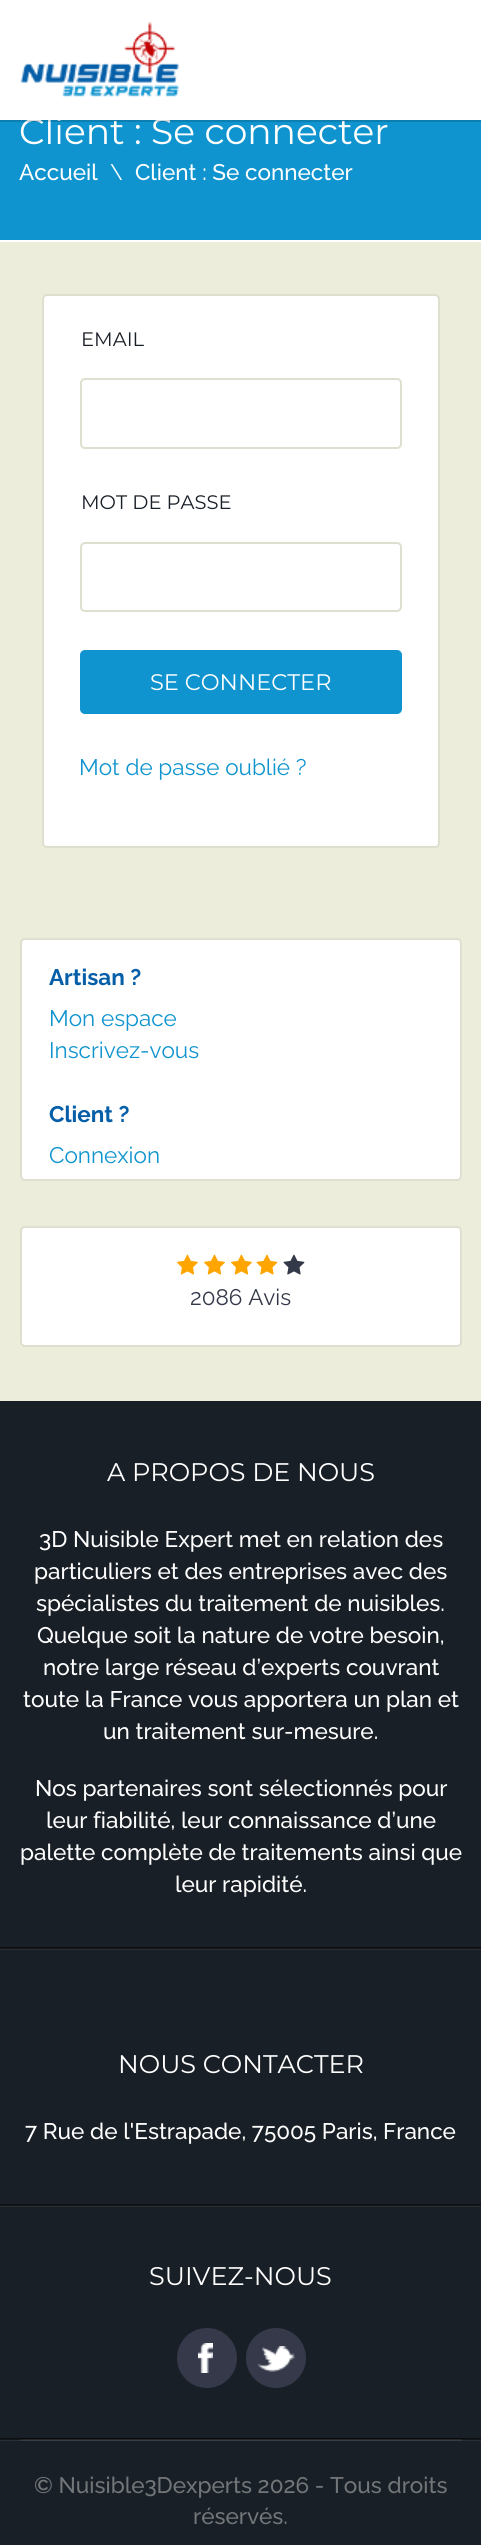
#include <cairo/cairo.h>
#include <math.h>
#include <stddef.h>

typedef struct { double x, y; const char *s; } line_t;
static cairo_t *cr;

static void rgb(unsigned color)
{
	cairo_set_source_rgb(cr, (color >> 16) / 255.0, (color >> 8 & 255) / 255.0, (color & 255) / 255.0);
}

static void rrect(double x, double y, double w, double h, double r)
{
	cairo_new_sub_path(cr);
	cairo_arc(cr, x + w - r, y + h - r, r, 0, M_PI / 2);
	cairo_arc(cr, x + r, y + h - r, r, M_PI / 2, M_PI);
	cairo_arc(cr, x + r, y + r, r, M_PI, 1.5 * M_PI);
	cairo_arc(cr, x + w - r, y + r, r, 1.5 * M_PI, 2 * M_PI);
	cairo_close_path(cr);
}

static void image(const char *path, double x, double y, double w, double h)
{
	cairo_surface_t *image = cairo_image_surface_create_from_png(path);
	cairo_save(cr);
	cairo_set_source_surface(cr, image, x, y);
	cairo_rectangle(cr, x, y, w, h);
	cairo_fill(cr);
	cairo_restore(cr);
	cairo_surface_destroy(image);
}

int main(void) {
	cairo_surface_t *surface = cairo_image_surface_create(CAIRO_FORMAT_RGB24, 481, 2545);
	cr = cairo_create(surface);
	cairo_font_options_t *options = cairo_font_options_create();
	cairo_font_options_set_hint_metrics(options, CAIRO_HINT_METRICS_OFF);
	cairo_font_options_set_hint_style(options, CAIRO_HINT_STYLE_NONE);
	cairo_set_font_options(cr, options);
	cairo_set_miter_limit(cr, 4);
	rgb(0xededdc);
	cairo_paint(cr);
	rgb(0xffffff);
	cairo_rectangle(cr, 0, 0, 481, 120);
	cairo_fill(cr);
	image("img/1.png", 20, 22, 159, 75);
	rgb(0x0f94cf);
	cairo_rectangle(cr, 0, 120, 481, 120);
	cairo_fill(cr);
	rgb(0xffffff);
	cairo_rectangle(cr, 0, 240, 481, 2);
	cairo_fill(cr);
	rrect(43, 295, 396, 552, 4);
	cairo_fill_preserve(cr);
	rgb(0xdfdfd0);
	cairo_stroke(cr);
	rrect(81, 379, 320, 69, 4);
	cairo_stroke(cr);
	rrect(81, 543, 320, 68, 4);
	cairo_stroke(cr);
	rgb(0x0f94cf);
	rrect(80, 650, 322, 64, 5);
	cairo_fill(cr);
	rgb(0xffffff);
	rrect(21, 939, 440, 241, 4);
	cairo_fill_preserve(cr);
	rgb(0xdfdfd0);
	cairo_stroke(cr);
	rgb(0xffffff);
	rrect(21, 1227, 440, 119, 4);
	cairo_fill_preserve(cr);
	rgb(0xdfdfd0);
	cairo_stroke(cr);
	image("img/2.png", 177, 1254, 21, 21);
	image("img/2.png", 204, 1254, 21, 21);
	image("img/2.png", 231, 1254, 21, 21);
	image("img/3.png", 256, 1254, 22, 21);
	image("img/4.png", 283, 1254, 22, 21);
	rgb(0x191f26);
	cairo_rectangle(cr, 0, 1401, 481, 1144);
	cairo_fill(cr);
	rgb(0x292f35);
	cairo_new_path(cr);
	cairo_move_to(cr, -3, 1948);
	cairo_line_to(cr, -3, 1950);
	cairo_line_to(cr, 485, 1950);
	cairo_line_to(cr, 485, 1403);
	cairo_line_to(cr, 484, 1403);
	cairo_line_to(cr, 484, 1948);
	cairo_close_path(cr);
	cairo_fill(cr);
	cairo_set_source_rgba(cr, 0, 0, 0, 0.5);
	cairo_rectangle(cr, 0, 1947, 481, 2);
	cairo_fill(cr);
	rgb(0x292f35);
	cairo_new_path(cr);
	cairo_move_to(cr, -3, 2205);
	cairo_line_to(cr, -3, 2207);
	cairo_line_to(cr, 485, 2207);
	cairo_line_to(cr, 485, 1995);
	cairo_line_to(cr, 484, 1995);
	cairo_line_to(cr, 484, 2205);
	cairo_close_path(cr);
	cairo_fill(cr);
	cairo_set_source_rgba(cr, 0, 0, 0, 0.5);
	cairo_rectangle(cr, 0, 2204, 481, 2);
	cairo_fill(cr);
	rgb(0x292f35);
	cairo_new_path(cr);
	cairo_move_to(cr, -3, 2439);
	cairo_line_to(cr, -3, 2441);
	cairo_line_to(cr, 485, 2441);
	cairo_line_to(cr, 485, 2207);
	cairo_line_to(cr, 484, 2207);
	cairo_line_to(cr, 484, 2439);
	cairo_close_path(cr);
	cairo_fill(cr);
	cairo_set_source_rgba(cr, 0, 0, 0, 0.5);
	cairo_rectangle(cr, 0, 2438, 481, 2);
	cairo_fill(cr);
	rgb(0x35394a);
	cairo_arc(cr, 207, 2358, 30, 0, 2 * M_PI);
	cairo_fill(cr);
	image("img/5.png", 198, 2343, 15, 30);
	cairo_arc(cr, 276, 2358, 30, 0, 2 * M_PI);
	cairo_fill(cr);
	image("img/6.png", 258, 2346, 38, 26);
	rgb(0x06080a);
	cairo_rectangle(cr, 20, 2438, 442, 1);
	cairo_fill(cr);
	cairo_set_source_rgba(cr, 1, 1, 1, 0.07);
	cairo_rectangle(cr, 20, 2439, 442, 2);
	cairo_fill(cr);
	cairo_select_font_face(cr, "Montserrat", CAIRO_FONT_SLANT_NORMAL, CAIRO_FONT_WEIGHT_NORMAL);
	cairo_set_font_size(cr, 36);
	rgb(0xffffff);
	cairo_move_to(cr, 19, 144);
	cairo_show_text(cr, "Client : Se connecter");
	cairo_set_source_rgba(cr, 0, 0, 0, 0.15);
	cairo_new_path(cr);
	cairo_move_to(cr, 0, 120);
	cairo_line_to(cr, 0, 122);
	cairo_line_to(cr, 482, 122);
	cairo_line_to(cr, 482, 2);
	cairo_line_to(cr, 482, 120);
	cairo_close_path(cr);
	cairo_fill(cr);
	cairo_select_font_face(cr, "Raleway Medium", CAIRO_FONT_SLANT_NORMAL, CAIRO_FONT_WEIGHT_NORMAL);
	cairo_set_font_size(cr, 22.5);
	rgb(0xffffff);
	cairo_move_to(cr, 19, 180);
	cairo_show_text(cr, "Accueil");
	cairo_select_font_face(cr, "Raleway", CAIRO_FONT_SLANT_NORMAL, CAIRO_FONT_WEIGHT_NORMAL);
	cairo_move_to(cr, 110, 180);
	cairo_show_text(cr, "\\");
	cairo_select_font_face(cr, "Raleway Medium", CAIRO_FONT_SLANT_NORMAL, CAIRO_FONT_WEIGHT_NORMAL);
	cairo_move_to(cr, 135, 180);
	cairo_show_text(cr, "Client : Se connecter");
	cairo_select_font_face(cr, "Montserrat", CAIRO_FONT_SLANT_NORMAL, CAIRO_FONT_WEIGHT_NORMAL);
	cairo_set_font_size(cr, 19.5);
	rgb(0x191f26);
	cairo_move_to(cr, 81, 346);
	cairo_show_text(cr, "EMAIL");
	cairo_move_to(cr, 81, 509);
	cairo_show_text(cr, "MOT DE PASSE");
	cairo_set_font_size(cr, 22.5);
	rgb(0xffffff);
	cairo_move_to(cr, 150, 690);
	cairo_show_text(cr, "SE CONNECTER");
	cairo_select_font_face(cr, "Raleway", CAIRO_FONT_SLANT_NORMAL, CAIRO_FONT_WEIGHT_NORMAL);
	rgb(0x0f94cf);
	cairo_move_to(cr, 79, 775);
	cairo_show_text(cr, "Mot de passe oublié ?");
	cairo_select_font_face(cr, "Raleway", CAIRO_FONT_SLANT_NORMAL, CAIRO_FONT_WEIGHT_BOLD);
	rgb(0x045ea8);
	cairo_move_to(cr, 49, 985);
	cairo_show_text(cr, "Artisan ?");
	cairo_select_font_face(cr, "Raleway", CAIRO_FONT_SLANT_NORMAL, CAIRO_FONT_WEIGHT_NORMAL);
	rgb(0x0f94cf);
	cairo_move_to(cr, 49, 1026);
	cairo_show_text(cr, "Mon espace");
	cairo_move_to(cr, 49, 1058);
	cairo_show_text(cr, "Inscrivez-vous");
	cairo_select_font_face(cr, "Raleway", CAIRO_FONT_SLANT_NORMAL, CAIRO_FONT_WEIGHT_BOLD);
	rgb(0x045ea8);
	cairo_move_to(cr, 49, 1122);
	cairo_show_text(cr, "Client ?");
	cairo_select_font_face(cr, "Raleway", CAIRO_FONT_SLANT_NORMAL, CAIRO_FONT_WEIGHT_NORMAL);
	rgb(0x0f94cf);
	cairo_move_to(cr, 49, 1163);
	cairo_show_text(cr, "Connexion");
	rgb(0x34394a);
	cairo_move_to(cr, 190, 1305);
	cairo_show_text(cr, "2086 Avis");
	cairo_select_font_face(cr, "Montserrat", CAIRO_FONT_SLANT_NORMAL, CAIRO_FONT_WEIGHT_NORMAL);
	cairo_set_font_size(cr, 25.5);
	rgb(0xffffff);
	cairo_move_to(cr, 107, 1481);
	cairo_show_text(cr, "A PROPOS DE NOUS");
	cairo_select_font_face(cr, "Raleway Medium", CAIRO_FONT_SLANT_NORMAL, CAIRO_FONT_WEIGHT_NORMAL);
	cairo_set_font_size(cr, 22.5);
	{
		static const line_t items[] = {
			{39, 1547, "3D Nuisible Expert met en relation des"},
			{34, 1579, "particuliers et des entreprises avec des"},
			{36, 1611, "spécialistes du traitement de nuisibles."},
			{37, 1643, "Quelque soit la nature de votre besoin,"},
			{43, 1675, "notre large réseau d’experts couvrant"},
			{23, 1707, "toute la France vous apportera un plan et"},
			{103, 1739, "un traitement sur-mesure."},
			{35, 1796, "Nos partenaires sont sélectionnés pour"},
			{46, 1828, "leur fiabilité, leur connaissance d’une"},
			{20, 1860, "palette complète de traitements ainsi que"},
			{175, 1892, "leur rapidité."},
		};
		for (size_t i = 0; i < sizeof items / sizeof *items; i++) {
			cairo_move_to(cr, items[i].x, items[i].y);
			cairo_show_text(cr, items[i].s);
		}
	}
	cairo_select_font_face(cr, "Montserrat", CAIRO_FONT_SLANT_NORMAL, CAIRO_FONT_WEIGHT_NORMAL);
	cairo_set_font_size(cr, 25.5);
	cairo_move_to(cr, 118, 2073);
	cairo_show_text(cr, "NOUS CONTACTER");
	cairo_select_font_face(cr, "Raleway Medium", CAIRO_FONT_SLANT_NORMAL, CAIRO_FONT_WEIGHT_NORMAL);
	cairo_set_font_size(cr, 22.5);
	cairo_move_to(cr, 25, 2139);
	cairo_show_text(cr, "7 Rue de l'Estrapade, 75005 Paris, France");
	cairo_select_font_face(cr, "Montserrat", CAIRO_FONT_SLANT_NORMAL, CAIRO_FONT_WEIGHT_NORMAL);
	cairo_set_font_size(cr, 25.5);
	cairo_move_to(cr, 149, 2285);
	cairo_show_text(cr, "SUIVEZ-NOUS");
	cairo_select_font_face(cr, "Raleway Medium", CAIRO_FONT_SLANT_NORMAL, CAIRO_FONT_WEIGHT_NORMAL);
	cairo_set_font_size(cr, 22.5);
	rgb(0x727679);
	cairo_move_to(cr, 34, 2493);
	cairo_show_text(cr, "© Nuisible3Dexperts 2026 - Tous droits");
	cairo_move_to(cr, 193, 2524);
	cairo_show_text(cr, "réservés.");
	cairo_surface_write_to_png(surface, "page.png");
	cairo_font_options_destroy(options);
	cairo_destroy(cr);
	cairo_surface_destroy(surface);
	return 0;
}
